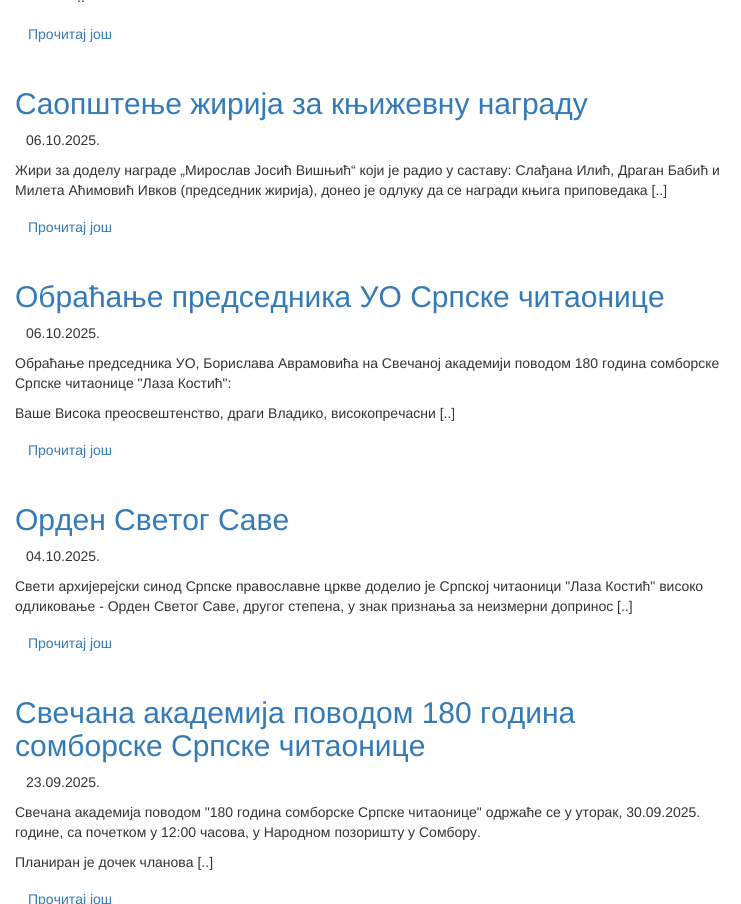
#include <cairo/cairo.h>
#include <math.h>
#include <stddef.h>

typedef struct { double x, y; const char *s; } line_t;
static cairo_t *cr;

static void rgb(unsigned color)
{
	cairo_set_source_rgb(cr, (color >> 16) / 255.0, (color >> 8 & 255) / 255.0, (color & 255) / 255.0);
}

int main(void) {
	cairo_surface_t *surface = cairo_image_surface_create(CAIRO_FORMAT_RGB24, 741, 904);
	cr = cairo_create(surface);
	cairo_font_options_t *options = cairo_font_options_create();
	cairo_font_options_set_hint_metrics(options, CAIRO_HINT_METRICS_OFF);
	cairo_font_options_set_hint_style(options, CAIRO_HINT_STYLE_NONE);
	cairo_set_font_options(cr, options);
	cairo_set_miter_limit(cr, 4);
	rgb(0xffffff);
	cairo_paint(cr);
	cairo_select_font_face(cr, "Liberation Sans", CAIRO_FONT_SLANT_NORMAL, CAIRO_FONT_WEIGHT_NORMAL);
	cairo_set_font_size(cr, 14);
	rgb(0x333333);
	cairo_move_to(cr, 77, 2);
	cairo_show_text(cr, "..");
	rgb(0x337ab7);
	cairo_move_to(cr, 28, 39);
	cairo_show_text(cr, "Прочитај још");
	cairo_set_font_size(cr, 30);
	cairo_move_to(cr, 15, 114);
	cairo_show_text(cr, "Саопштење жирија за књижевну награду");
	cairo_set_font_size(cr, 14);
	rgb(0x333333);
	{
		static const line_t items[] = {
			{26, 145, "06.10.2025."},
			{15, 175, "Жири за доделу награде „Мирослав Јосић Вишњић“ који је радио у саставу: Слађана Илић, Драган Бабић и"},
			{15, 195, "Милета Аћимовић Ивков (председник жирија), донео је одлуку да се награди књига приповедака [..]"},
		};
		for (size_t i = 0; i < sizeof items / sizeof *items; i++) {
			cairo_move_to(cr, items[i].x, items[i].y);
			cairo_show_text(cr, items[i].s);
		}
	}
	rgb(0x337ab7);
	cairo_move_to(cr, 28, 232);
	cairo_show_text(cr, "Прочитај још");
	cairo_set_font_size(cr, 30);
	cairo_move_to(cr, 15, 307);
	cairo_show_text(cr, "Обраћање председника УО Српске читаонице");
	cairo_set_font_size(cr, 14);
	rgb(0x333333);
	{
		static const line_t items[] = {
			{26, 338, "06.10.2025."},
			{15, 368, "Обраћање председника УО, Борислава Аврамовића на Свечаној академији поводом 180 година сомборске"},
			{15, 388, "Српске читаонице \"Лаза Костић\":"},
			{15, 418, "Вашe Висока преосвештенствo, драги Владико, високопречасни [..]"},
		};
		for (size_t i = 0; i < sizeof items / sizeof *items; i++) {
			cairo_move_to(cr, items[i].x, items[i].y);
			cairo_show_text(cr, items[i].s);
		}
	}
	rgb(0x337ab7);
	cairo_move_to(cr, 28, 455);
	cairo_show_text(cr, "Прочитај још");
	cairo_set_font_size(cr, 30);
	cairo_move_to(cr, 15, 530);
	cairo_show_text(cr, "Орден Светог Саве");
	cairo_set_font_size(cr, 14);
	rgb(0x333333);
	{
		static const line_t items[] = {
			{26, 561, "04.10.2025."},
			{15, 591, "Свети архијерејски синод Српске православне цркве доделио је Српској читаоници \"Лаза Костић\" високо"},
			{15, 611, "одликовање - Орден Светог Саве, другог степена, у знак признања за неизмерни допринос [..]"},
		};
		for (size_t i = 0; i < sizeof items / sizeof *items; i++) {
			cairo_move_to(cr, items[i].x, items[i].y);
			cairo_show_text(cr, items[i].s);
		}
	}
	rgb(0x337ab7);
	cairo_move_to(cr, 28, 648);
	cairo_show_text(cr, "Прочитај још");
	cairo_set_font_size(cr, 30);
	cairo_move_to(cr, 15, 723);
	cairo_show_text(cr, "Свечана академија поводом 180 година");
	cairo_move_to(cr, 15, 756);
	cairo_show_text(cr, "сомборске Српске читаонице");
	cairo_set_font_size(cr, 14);
	rgb(0x333333);
	{
		static const line_t items[] = {
			{26, 787, "23.09.2025."},
			{15, 817, "Свечана академија поводом \"180 година сомборске Српске читаонице\" одржаће се у уторак, 30.09.2025."},
			{15, 837, "године, са почетком у 12:00 часова, у Народном позоришту у Сомбору."},
			{15, 867, "Планиран је дочек чланова [..]"},
		};
		for (size_t i = 0; i < sizeof items / sizeof *items; i++) {
			cairo_move_to(cr, items[i].x, items[i].y);
			cairo_show_text(cr, items[i].s);
		}
	}
	rgb(0x337ab7);
	cairo_move_to(cr, 28, 904);
	cairo_show_text(cr, "Прочитај још");
	cairo_surface_write_to_png(surface, "page.png");
	cairo_font_options_destroy(options);
	cairo_destroy(cr);
	cairo_surface_destroy(surface);
	return 0;
}
